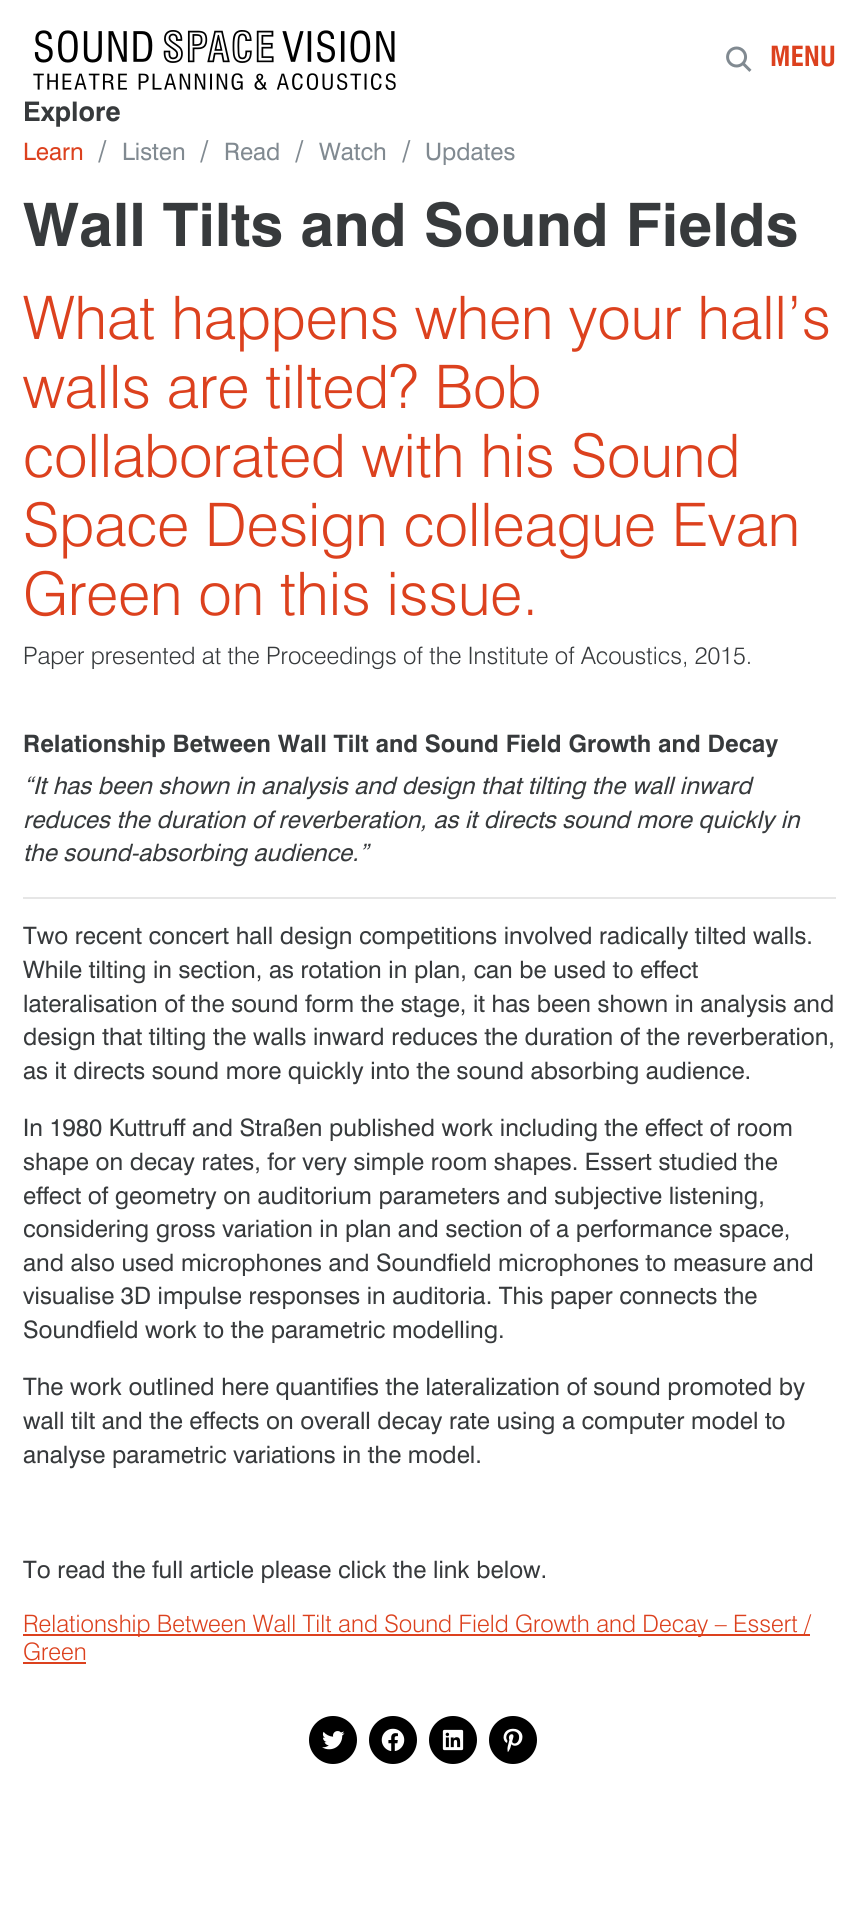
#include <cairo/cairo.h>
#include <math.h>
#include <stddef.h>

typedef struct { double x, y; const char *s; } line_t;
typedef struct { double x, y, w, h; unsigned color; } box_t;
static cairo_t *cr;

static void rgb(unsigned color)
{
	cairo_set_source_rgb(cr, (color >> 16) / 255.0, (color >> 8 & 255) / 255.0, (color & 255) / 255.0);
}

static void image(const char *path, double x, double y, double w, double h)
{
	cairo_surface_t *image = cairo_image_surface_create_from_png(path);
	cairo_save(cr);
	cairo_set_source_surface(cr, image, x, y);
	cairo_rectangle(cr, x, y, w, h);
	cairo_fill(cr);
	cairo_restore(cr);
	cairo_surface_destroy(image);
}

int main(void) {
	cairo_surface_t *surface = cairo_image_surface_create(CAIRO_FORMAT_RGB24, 857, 1906);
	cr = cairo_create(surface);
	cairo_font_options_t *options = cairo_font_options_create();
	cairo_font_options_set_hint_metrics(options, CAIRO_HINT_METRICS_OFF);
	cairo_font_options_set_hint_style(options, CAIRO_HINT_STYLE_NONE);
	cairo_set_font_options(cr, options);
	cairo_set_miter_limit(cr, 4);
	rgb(0xffffff);
	cairo_paint(cr);
	image("img/1.png", 33, 30, 363, 60);
	image("img/2.png", 726, 46, 26, 26);
	{
		static const box_t items[] = {
			{23, 897, 813, 2, 0xe6e6e6},
			{23, 1634, 787, 2, 0xdc411e},
			{23, 1662, 63, 2, 0xdc411e},
		};
		for (size_t i = 0; i < sizeof items / sizeof *items; i++) {
			rgb(items[i].color);
			cairo_rectangle(cr, items[i].x, items[i].y, items[i].w, items[i].h);
			cairo_fill(cr);
		}
	}
	rgb(0x000000);
	cairo_arc(cr, 333, 1740, 24, 0, 2 * M_PI);
	cairo_fill(cr);
	image("img/3.png", 322, 1731, 23, 19);
	cairo_arc(cr, 393, 1740, 24, 0, 2 * M_PI);
	cairo_fill(cr);
	image("img/4.png", 381, 1728, 24, 23);
	cairo_arc(cr, 453, 1740, 24, 0, 2 * M_PI);
	cairo_fill(cr);
	image("img/5.png", 442, 1729, 22, 22);
	cairo_arc(cr, 513, 1740, 24, 0, 2 * M_PI);
	cairo_fill(cr);
	image("img/6.png", 503, 1728, 20, 24);
	cairo_select_font_face(cr, "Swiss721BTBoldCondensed", CAIRO_FONT_SLANT_NORMAL, CAIRO_FONT_WEIGHT_NORMAL);
	cairo_set_font_size(cr, 27);
	rgb(0xdc411e);
	cairo_move_to(cr, 770, 66);
	cairo_show_text(cr, "MENU");
	cairo_select_font_face(cr, "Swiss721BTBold", CAIRO_FONT_SLANT_NORMAL, CAIRO_FONT_WEIGHT_NORMAL);
	rgb(0x373a3c);
	cairo_move_to(cr, 23, 121);
	cairo_show_text(cr, "Explore");
	cairo_select_font_face(cr, "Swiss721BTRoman", CAIRO_FONT_SLANT_NORMAL, CAIRO_FONT_WEIGHT_NORMAL);
	cairo_set_font_size(cr, 24);
	rgb(0xdc411e);
	cairo_move_to(cr, 23, 160);
	cairo_show_text(cr, "Learn");
	cairo_select_font_face(cr, "Swiss721BTBold", CAIRO_FONT_SLANT_NORMAL, CAIRO_FONT_WEIGHT_NORMAL);
	cairo_set_font_size(cr, 27);
	rgb(0x818a91);
	cairo_move_to(cr, 98, 160);
	cairo_show_text(cr, "/");
	cairo_select_font_face(cr, "Swiss721BTRoman", CAIRO_FONT_SLANT_NORMAL, CAIRO_FONT_WEIGHT_NORMAL);
	cairo_set_font_size(cr, 24);
	cairo_move_to(cr, 122, 160);
	cairo_show_text(cr, "Listen");
	cairo_select_font_face(cr, "Swiss721BTBold", CAIRO_FONT_SLANT_NORMAL, CAIRO_FONT_WEIGHT_NORMAL);
	cairo_set_font_size(cr, 27);
	cairo_move_to(cr, 200, 160);
	cairo_show_text(cr, "/");
	cairo_select_font_face(cr, "Swiss721BTRoman", CAIRO_FONT_SLANT_NORMAL, CAIRO_FONT_WEIGHT_NORMAL);
	cairo_set_font_size(cr, 24);
	cairo_move_to(cr, 224, 160);
	cairo_show_text(cr, "Read");
	cairo_select_font_face(cr, "Swiss721BTBold", CAIRO_FONT_SLANT_NORMAL, CAIRO_FONT_WEIGHT_NORMAL);
	cairo_set_font_size(cr, 27);
	cairo_move_to(cr, 295, 160);
	cairo_show_text(cr, "/");
	cairo_select_font_face(cr, "Swiss721BTRoman", CAIRO_FONT_SLANT_NORMAL, CAIRO_FONT_WEIGHT_NORMAL);
	cairo_set_font_size(cr, 24);
	cairo_move_to(cr, 319, 160);
	cairo_show_text(cr, "Watch");
	cairo_select_font_face(cr, "Swiss721BTBold", CAIRO_FONT_SLANT_NORMAL, CAIRO_FONT_WEIGHT_NORMAL);
	cairo_set_font_size(cr, 27);
	cairo_move_to(cr, 402, 160);
	cairo_show_text(cr, "/");
	cairo_select_font_face(cr, "Swiss721BTRoman", CAIRO_FONT_SLANT_NORMAL, CAIRO_FONT_WEIGHT_NORMAL);
	cairo_set_font_size(cr, 24);
	cairo_move_to(cr, 425, 160);
	cairo_show_text(cr, "Updates");
	cairo_select_font_face(cr, "Swiss721BTBold", CAIRO_FONT_SLANT_NORMAL, CAIRO_FONT_WEIGHT_NORMAL);
	cairo_set_font_size(cr, 60);
	rgb(0x373a3c);
	cairo_move_to(cr, 23, 246);
	cairo_show_text(cr, "Wall Tilts and Sound Fields");
	cairo_select_font_face(cr, "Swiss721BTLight", CAIRO_FONT_SLANT_NORMAL, CAIRO_FONT_WEIGHT_NORMAL);
	rgb(0xdc411e);
	{
		static const line_t items[] = {
			{23, 339, "What happens when your hall’s"},
			{23, 408, "walls are tilted? Bob"},
			{23, 477, "collaborated with his Sound"},
			{23, 546, "Space Design colleague Evan"},
			{23, 615, "Green on this issue."},
		};
		for (size_t i = 0; i < sizeof items / sizeof *items; i++) {
			cairo_move_to(cr, items[i].x, items[i].y);
			cairo_show_text(cr, items[i].s);
		}
	}
	cairo_set_font_size(cr, 24);
	rgb(0x373a3c);
	cairo_move_to(cr, 23, 664);
	cairo_show_text(cr, "Paper presented at the Proceedings of the Institute of Acoustics, 2015.");
	cairo_select_font_face(cr, "Swiss721BTBold", CAIRO_FONT_SLANT_NORMAL, CAIRO_FONT_WEIGHT_NORMAL);
	cairo_move_to(cr, 23, 752);
	cairo_show_text(cr, "Relationship Between Wall Tilt and Sound Field Growth and Decay");
	cairo_select_font_face(cr, "Swiss721BTRoman", CAIRO_FONT_SLANT_ITALIC, CAIRO_FONT_WEIGHT_NORMAL);
	{
		static const line_t items[] = {
			{23, 794, "“It has been shown in analysis and design that tilting the wall inward"},
			{23, 828, "reduces the duration of reverberation, as it directs sound more quickly in"},
			{23, 861, "the sound-absorbing audience.”"},
		};
		for (size_t i = 0; i < sizeof items / sizeof *items; i++) {
			cairo_move_to(cr, items[i].x, items[i].y);
			cairo_show_text(cr, items[i].s);
		}
	}
	cairo_select_font_face(cr, "Swiss721BTRoman", CAIRO_FONT_SLANT_NORMAL, CAIRO_FONT_WEIGHT_NORMAL);
	{
		static const line_t items[] = {
			{23, 944, "Two recent concert hall design competitions involved radically tilted walls."},
			{23, 978, "While tilting in section, as rotation in plan, can be used to effect"},
			{23, 1012, "lateralisation of the sound form the stage, it has been shown in analysis and"},
			{23, 1045, "design that tilting the walls inward reduces the duration of the reverberation,"},
			{23, 1079, "as it directs sound more quickly into the sound absorbing audience."},
			{23, 1136, "In 1980 Kuttruff and Straßen published work including the effect of room"},
			{23, 1170, "shape on decay rates, for very simple room shapes. Essert studied the"},
			{23, 1204, "effect of geometry on auditorium parameters and subjective listening,"},
			{23, 1237, "considering gross variation in plan and section of a performance space,"},
			{23, 1271, "and also used microphones and Soundfield microphones to measure and"},
			{23, 1304, "visualise 3D impulse responses in auditoria. This paper connects the"},
			{23, 1338, "Soundfield work to the parametric modelling."},
			{23, 1395, "The work outlined here quantifies the lateralization of sound promoted by"},
			{23, 1429, "wall tilt and the effects on overall decay rate using a computer model to"},
			{23, 1463, "analyse parametric variations in the model."},
			{23, 1578, "To read the full article please click the link below."},
		};
		for (size_t i = 0; i < sizeof items / sizeof *items; i++) {
			cairo_move_to(cr, items[i].x, items[i].y);
			cairo_show_text(cr, items[i].s);
		}
	}
	cairo_select_font_face(cr, "Swiss721BTLight", CAIRO_FONT_SLANT_NORMAL, CAIRO_FONT_WEIGHT_NORMAL);
	rgb(0xdc411e);
	cairo_move_to(cr, 23, 1632);
	cairo_show_text(cr, "Relationship Between Wall Tilt and Sound Field Growth and Decay – Essert /");
	cairo_move_to(cr, 23, 1660);
	cairo_show_text(cr, "Green");
	cairo_surface_write_to_png(surface, "page.png");
	cairo_font_options_destroy(options);
	cairo_destroy(cr);
	cairo_surface_destroy(surface);
	return 0;
}
